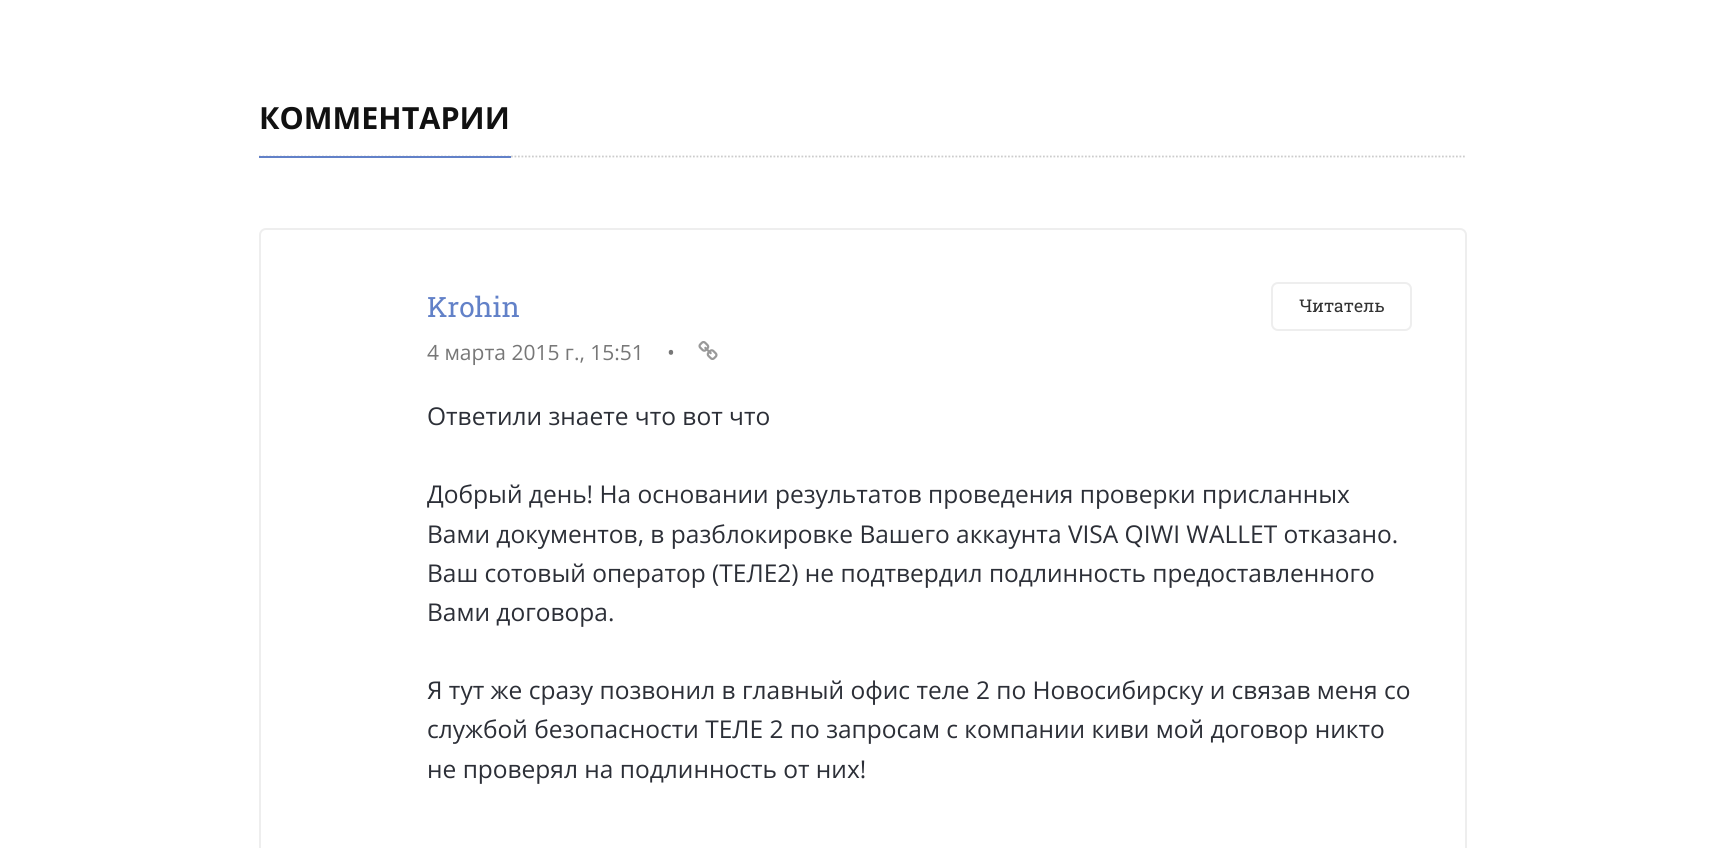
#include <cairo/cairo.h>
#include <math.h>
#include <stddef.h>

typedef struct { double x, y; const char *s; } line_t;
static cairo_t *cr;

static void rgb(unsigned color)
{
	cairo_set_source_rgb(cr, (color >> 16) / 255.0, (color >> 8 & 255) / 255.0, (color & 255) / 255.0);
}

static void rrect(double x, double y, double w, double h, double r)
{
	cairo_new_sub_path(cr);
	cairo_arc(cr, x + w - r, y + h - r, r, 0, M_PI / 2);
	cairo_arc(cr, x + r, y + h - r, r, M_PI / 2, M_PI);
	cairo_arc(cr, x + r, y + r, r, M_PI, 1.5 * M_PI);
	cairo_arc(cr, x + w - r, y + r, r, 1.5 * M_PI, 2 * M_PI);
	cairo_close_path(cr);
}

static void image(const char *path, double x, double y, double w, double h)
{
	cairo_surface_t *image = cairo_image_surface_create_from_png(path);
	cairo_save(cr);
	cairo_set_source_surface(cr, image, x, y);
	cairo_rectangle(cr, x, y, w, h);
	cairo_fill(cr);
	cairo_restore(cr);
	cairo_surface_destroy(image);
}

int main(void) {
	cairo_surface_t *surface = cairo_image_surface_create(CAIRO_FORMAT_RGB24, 1725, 848);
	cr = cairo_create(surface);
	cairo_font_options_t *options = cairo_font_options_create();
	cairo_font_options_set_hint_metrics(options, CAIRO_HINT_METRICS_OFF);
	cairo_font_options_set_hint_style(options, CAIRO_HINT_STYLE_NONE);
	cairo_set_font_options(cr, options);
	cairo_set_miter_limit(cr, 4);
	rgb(0xffffff);
	cairo_paint(cr);
	cairo_new_path(cr);
	cairo_move_to(cr, 259, 156.5);
	cairo_line_to(cr, 1466.5, 156.5);
	rgb(0xcccccc);
	cairo_set_line_width(cr, 1.8);
	cairo_set_dash(cr, (double[]){1.75, 1.75}, 2, 0);
	cairo_stroke(cr);
	rgb(0x6281c8);
	cairo_rectangle(cr, 259, 156, 252, 2);
	cairo_fill(cr);
	rrect(260, 229, 1206, 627, 6);
	rgb(0xeeeeee);
	cairo_set_line_width(cr, 2);
	cairo_set_dash(cr, NULL, 0, 0);
	cairo_stroke(cr);
	rrect(1272, 283, 139, 47, 6);
	cairo_stroke(cr);
	image("img/1.png", 698, 341, 20, 19);
	cairo_select_font_face(cr, "Open Sans", CAIRO_FONT_SLANT_NORMAL, CAIRO_FONT_WEIGHT_BOLD);
	cairo_set_font_size(cr, 30.5);
	rgb(0x111111);
	cairo_move_to(cr, 259, 129);
	cairo_show_text(cr, "КОММЕНТАРИИ");
	cairo_select_font_face(cr, "Roboto Slab", CAIRO_FONT_SLANT_NORMAL, CAIRO_FONT_WEIGHT_NORMAL);
	cairo_set_font_size(cr, 28);
	rgb(0x6281c8);
	cairo_move_to(cr, 427, 317);
	cairo_show_text(cr, "Krohin");
	cairo_set_font_size(cr, 17.5);
	rgb(0x333333);
	cairo_move_to(cr, 1299, 312);
	cairo_show_text(cr, "Читатель");
	cairo_select_font_face(cr, "Open Sans", CAIRO_FONT_SLANT_NORMAL, CAIRO_FONT_WEIGHT_NORMAL);
	cairo_set_font_size(cr, 21);
	rgb(0x777777);
	cairo_move_to(cr, 427, 360);
	cairo_show_text(cr, "4 марта 2015 г., 15:51");
	cairo_move_to(cr, 667, 360);
	cairo_show_text(cr, "•");
	cairo_set_font_size(cr, 24.5);
	rgb(0x2c2f37);
	{
		static const line_t items[] = {
			{427, 425, "Ответили знаете что вот что"},
			{427, 503, "Добрый день! На основании результатов проведения проверки присланных"},
			{427, 543, "Вами документов, в разблокировке Вашего аккаунта VISA QIWI WALLET отказано."},
			{427, 582, "Ваш сотовый оператор (ТЕЛЕ2) не подтвердил подлинность предоставленного"},
			{427, 621, "Вами договора."},
			{427, 699, "Я тут же сразу позвонил в главный офис теле 2 по Новосибирску и связав меня со"},
			{427, 738, "службой безопасности ТЕЛЕ 2 по запросам с компании киви мой договор никто"},
			{427, 778, "не проверял на подлинность от них!"},
		};
		for (size_t i = 0; i < sizeof items / sizeof *items; i++) {
			cairo_move_to(cr, items[i].x, items[i].y);
			cairo_show_text(cr, items[i].s);
		}
	}
	cairo_surface_write_to_png(surface, "page.png");
	cairo_font_options_destroy(options);
	cairo_destroy(cr);
	cairo_surface_destroy(surface);
	return 0;
}
